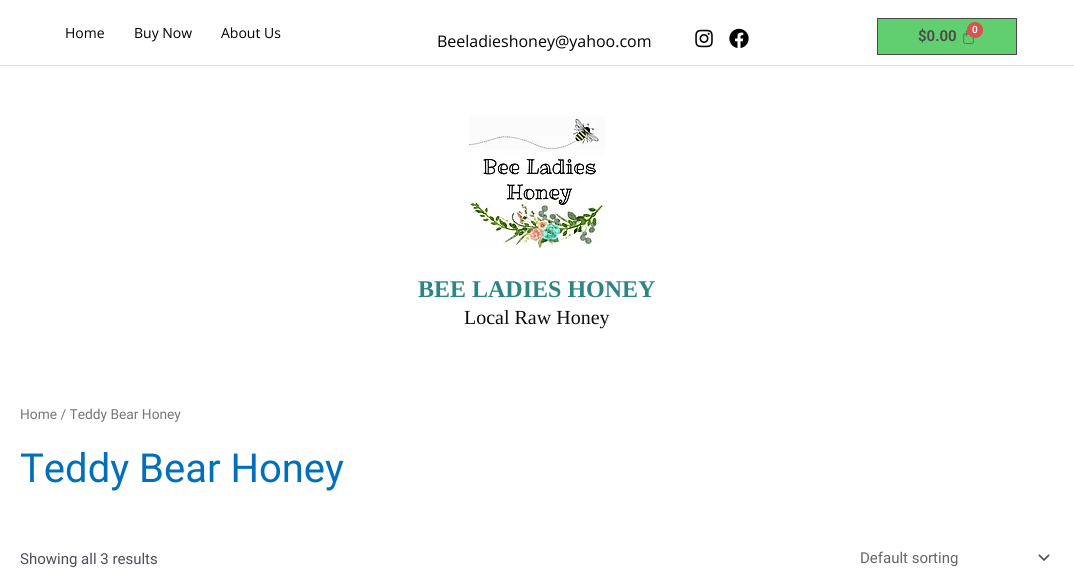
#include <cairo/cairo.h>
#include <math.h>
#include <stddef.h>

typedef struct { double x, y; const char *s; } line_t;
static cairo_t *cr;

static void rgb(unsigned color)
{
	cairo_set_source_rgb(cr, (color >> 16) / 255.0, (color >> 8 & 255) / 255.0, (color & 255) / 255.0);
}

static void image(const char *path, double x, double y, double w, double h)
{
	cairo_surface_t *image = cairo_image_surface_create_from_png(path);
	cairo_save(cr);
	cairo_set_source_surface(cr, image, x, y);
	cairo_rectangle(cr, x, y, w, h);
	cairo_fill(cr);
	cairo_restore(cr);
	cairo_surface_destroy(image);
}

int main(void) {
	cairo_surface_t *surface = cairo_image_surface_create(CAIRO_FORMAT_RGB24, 1074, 585);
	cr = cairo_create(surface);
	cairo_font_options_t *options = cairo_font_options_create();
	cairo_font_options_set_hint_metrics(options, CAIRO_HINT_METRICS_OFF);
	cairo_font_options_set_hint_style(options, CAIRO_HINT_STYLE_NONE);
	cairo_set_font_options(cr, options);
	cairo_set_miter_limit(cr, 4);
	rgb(0xffffff);
	cairo_paint(cr);
	rgb(0xe0dbdb);
	cairo_rectangle(cr, 0, 65, 1074, 1);
	cairo_fill(cr);
	image("img/1.png", 695, 29, 18, 19);
	image("img/2.png", 729, 28, 20, 20);
	rgb(0x61ce70);
	cairo_rectangle(cr, 877.5, 18.5, 139, 36);
	cairo_fill_preserve(cr);
	rgb(0x4d4848);
	cairo_set_line_width(cr, 1);
	cairo_stroke(cr);
	image("img/3.png", 963, 30, 11, 14);
	rgb(0xd9534f);
	cairo_arc(cr, 975, 30, 8, 0, 2 * M_PI);
	cairo_fill(cr);
	image("img/4.png", 469, 116, 136, 133);
	image("img/5.png", 1038, 554, 12, 7);
	cairo_select_font_face(cr, "Open Sans", CAIRO_FONT_SLANT_NORMAL, CAIRO_FONT_WEIGHT_NORMAL);
	cairo_set_font_size(cr, 14);
	rgb(0x000000);
	{
		static const line_t items[] = {
			{65, 38, "Home"},
			{134, 38, "Buy Now"},
			{221, 38, "About Us"},
		};
		for (size_t i = 0; i < sizeof items / sizeof *items; i++) {
			cairo_move_to(cr, items[i].x, items[i].y);
			cairo_show_text(cr, items[i].s);
		}
	}
	cairo_set_font_size(cr, 16);
	cairo_move_to(cr, 437, 47);
	cairo_show_text(cr, "Beeladieshoney@yahoo.com");
	cairo_select_font_face(cr, "Roboto SemiBold", CAIRO_FONT_SLANT_NORMAL, CAIRO_FONT_WEIGHT_NORMAL);
	cairo_set_font_size(cr, 15);
	rgb(0x4d4848);
	cairo_move_to(cr, 918, 41);
	cairo_show_text(cr, "$0.00");
	cairo_set_font_size(cr, 10);
	rgb(0xffffff);
	cairo_move_to(cr, 972, 33);
	cairo_show_text(cr, "0");
	cairo_select_font_face(cr, "Liberation Serif", CAIRO_FONT_SLANT_NORMAL, CAIRO_FONT_WEIGHT_BOLD);
	cairo_set_font_size(cr, 24);
	rgb(0x2d8484);
	cairo_move_to(cr, 418, 297);
	cairo_show_text(cr, "BEE LADIES HONEY");
	cairo_select_font_face(cr, "Liberation Serif", CAIRO_FONT_SLANT_NORMAL, CAIRO_FONT_WEIGHT_NORMAL);
	cairo_set_font_size(cr, 20);
	rgb(0x0e0e0d);
	cairo_move_to(cr, 464, 324);
	cairo_show_text(cr, "Local Raw Honey");
	cairo_select_font_face(cr, "Roboto", CAIRO_FONT_SLANT_NORMAL, CAIRO_FONT_WEIGHT_NORMAL);
	cairo_set_font_size(cr, 13.75);
	rgb(0x777777);
	cairo_move_to(cr, 20, 419);
	cairo_show_text(cr, "Home / Teddy Bear Honey");
	cairo_set_font_size(cr, 40);
	rgb(0x0170b9);
	cairo_move_to(cr, 20, 482);
	cairo_show_text(cr, "Teddy Bear Honey");
	cairo_set_font_size(cr, 15);
	rgb(0x4b4f58);
	cairo_move_to(cr, 20, 564);
	cairo_show_text(cr, "Showing all 3 results");
	rgb(0x666666);
	cairo_move_to(cr, 860, 563);
	cairo_show_text(cr, "Default sorting");
	cairo_surface_write_to_png(surface, "page.png");
	cairo_font_options_destroy(options);
	cairo_destroy(cr);
	cairo_surface_destroy(surface);
	return 0;
}
